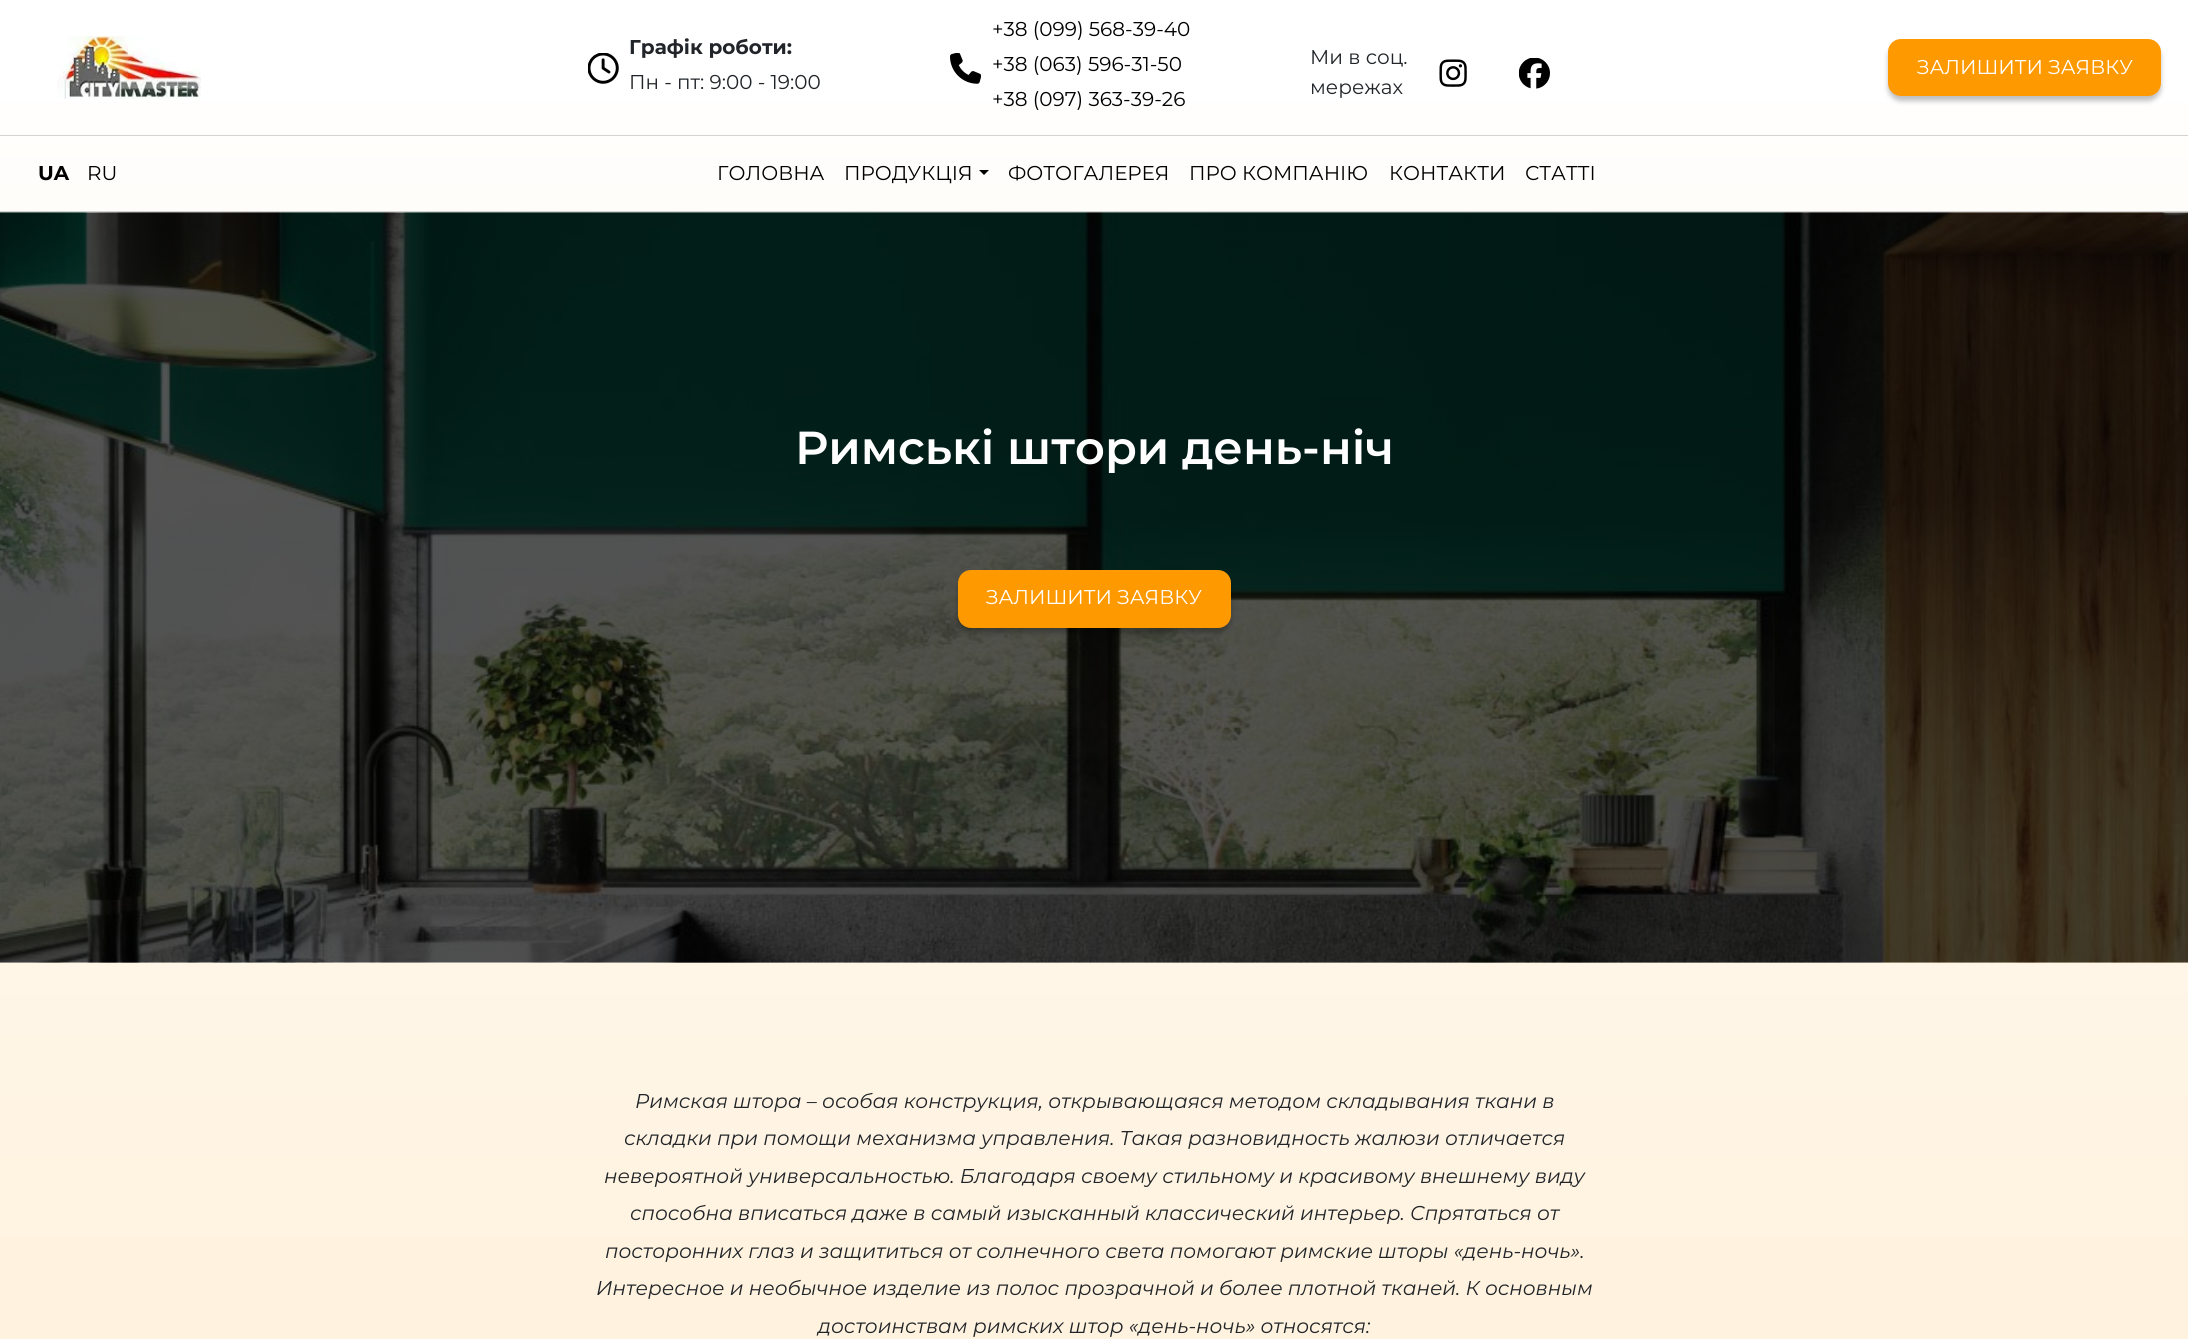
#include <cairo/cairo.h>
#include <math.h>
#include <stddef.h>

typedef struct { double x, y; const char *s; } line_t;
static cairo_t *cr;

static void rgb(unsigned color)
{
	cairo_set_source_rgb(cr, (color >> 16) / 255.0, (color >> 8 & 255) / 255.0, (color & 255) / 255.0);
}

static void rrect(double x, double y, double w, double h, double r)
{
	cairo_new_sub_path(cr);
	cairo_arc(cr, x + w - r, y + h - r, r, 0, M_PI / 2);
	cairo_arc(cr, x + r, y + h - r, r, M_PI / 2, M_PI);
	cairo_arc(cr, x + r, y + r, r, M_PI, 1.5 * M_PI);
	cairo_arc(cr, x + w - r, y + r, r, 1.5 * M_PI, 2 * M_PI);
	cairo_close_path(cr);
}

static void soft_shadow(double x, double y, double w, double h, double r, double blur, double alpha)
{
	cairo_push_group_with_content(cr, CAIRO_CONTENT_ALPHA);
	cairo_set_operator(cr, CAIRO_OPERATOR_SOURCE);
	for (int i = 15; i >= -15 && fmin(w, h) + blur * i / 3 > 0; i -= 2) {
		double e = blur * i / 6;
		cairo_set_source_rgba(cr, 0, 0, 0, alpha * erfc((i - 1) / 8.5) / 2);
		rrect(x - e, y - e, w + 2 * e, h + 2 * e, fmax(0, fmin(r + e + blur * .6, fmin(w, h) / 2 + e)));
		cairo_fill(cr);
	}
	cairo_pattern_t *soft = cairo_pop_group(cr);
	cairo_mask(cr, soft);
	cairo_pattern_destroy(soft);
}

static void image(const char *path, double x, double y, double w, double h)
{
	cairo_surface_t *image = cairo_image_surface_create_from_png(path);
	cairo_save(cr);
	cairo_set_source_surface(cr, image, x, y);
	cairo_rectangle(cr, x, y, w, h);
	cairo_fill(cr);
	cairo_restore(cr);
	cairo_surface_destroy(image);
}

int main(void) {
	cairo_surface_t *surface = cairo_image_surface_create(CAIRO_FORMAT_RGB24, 2188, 1339);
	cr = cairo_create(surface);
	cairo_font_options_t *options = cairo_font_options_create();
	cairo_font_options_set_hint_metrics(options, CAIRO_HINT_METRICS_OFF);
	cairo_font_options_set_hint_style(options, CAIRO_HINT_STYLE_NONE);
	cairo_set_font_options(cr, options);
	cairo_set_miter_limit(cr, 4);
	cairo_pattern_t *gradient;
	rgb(0xffffff);
	cairo_paint(cr);
	gradient = cairo_pattern_create_linear(1094, 0, 1094, 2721);
	cairo_pattern_add_color_stop_rgba(gradient, 0, 1, 1, 1, 1);
	cairo_pattern_add_color_stop_rgba(gradient, 1, 1, 0.898, 0.737, 1);
	cairo_set_source(cr, gradient);
	cairo_pattern_destroy(gradient);
	cairo_rectangle(cr, 0, 102, 2188, 1237);
	cairo_fill(cr);
	rgb(0xd3d3d3);
	cairo_rectangle(cr, 0, 135, 2188, 1);
	cairo_fill(cr);
	image("img/1.png", 57, 36, 144, 63);
	image("img/2.png", 588, 53, 31, 31);
	image("img/3.png", 950, 53, 31, 31);
	image("img/4.png", 1439, 59, 28, 28);
	image("img/5.png", 1519, 58, 31, 31);
	rgb(0x000000);
	soft_shadow(1888, 44, 273, 57, 13, 2.5, 0.25);
	rgb(0xff9900);
	rrect(1888, 39, 273, 57, 13);
	cairo_fill(cr);
	rgb(0xd3d3d3);
	cairo_rectangle(cr, 0, 211, 2188, 1);
	cairo_fill(cr);
	rgb(0x000000);
	cairo_new_path(cr);
	cairo_move_to(cr, 979, 170);
	cairo_line_to(cr, 989, 170);
	cairo_line_to(cr, 984, 175);
	cairo_close_path(cr);
	cairo_fill(cr);
	image("img/6.png", 0, 212, 2188, 751);
	rgb(0x000000);
	soft_shadow(958, 575, 273, 58, 13, 2.5, 0.25);
	rgb(0xff9900);
	rrect(958, 570, 273, 58, 13);
	cairo_fill(cr);
	cairo_select_font_face(cr, "Montserrat", CAIRO_FONT_SLANT_NORMAL, CAIRO_FONT_WEIGHT_BOLD);
	cairo_set_font_size(cr, 20);
	rgb(0x212529);
	cairo_move_to(cr, 629, 54);
	cairo_show_text(cr, "Графік роботи:");
	cairo_select_font_face(cr, "Montserrat", CAIRO_FONT_SLANT_NORMAL, CAIRO_FONT_WEIGHT_NORMAL);
	cairo_move_to(cr, 629, 89);
	cairo_show_text(cr, "Пн - пт: 9:00 - 19:00");
	rgb(0x000000);
	{
		static const line_t items[] = {
			{992, 36, "+38 (099) 568-39-40"},
			{992, 71, "+38 (063) 596-31-50"},
			{992, 106, "+38 (097) 363-39-26"},
		};
		for (size_t i = 0; i < sizeof items / sizeof *items; i++) {
			cairo_move_to(cr, items[i].x, items[i].y);
			cairo_show_text(cr, items[i].s);
		}
	}
	rgb(0x212529);
	cairo_move_to(cr, 1310, 64);
	cairo_show_text(cr, "Ми в соц.");
	cairo_move_to(cr, 1310, 94);
	cairo_show_text(cr, "мережах");
	rgb(0xffffff);
	cairo_move_to(cr, 1917, 74);
	cairo_show_text(cr, "ЗАЛИШИТИ ЗАЯВКУ");
	cairo_select_font_face(cr, "Montserrat", CAIRO_FONT_SLANT_NORMAL, CAIRO_FONT_WEIGHT_BOLD);
	rgb(0x000000);
	cairo_move_to(cr, 38, 180);
	cairo_show_text(cr, "UA");
	cairo_select_font_face(cr, "Montserrat", CAIRO_FONT_SLANT_NORMAL, CAIRO_FONT_WEIGHT_NORMAL);
	{
		static const line_t items[] = {
			{87, 180, "RU"},
			{717, 180, "ГОЛОВНА"},
			{844, 180, "ПРОДУКЦІЯ"},
			{1008, 180, "ФОТОГАЛЕРЕЯ"},
			{1189, 180, "ПРО КОМПАНІЮ"},
			{1389, 180, "КОНТАКТИ"},
			{1525, 180, "СТАТТІ"},
		};
		for (size_t i = 0; i < sizeof items / sizeof *items; i++) {
			cairo_move_to(cr, items[i].x, items[i].y);
			cairo_show_text(cr, items[i].s);
		}
	}
	cairo_select_font_face(cr, "Montserrat SemiBold", CAIRO_FONT_SLANT_NORMAL, CAIRO_FONT_WEIGHT_NORMAL);
	cairo_set_font_size(cr, 46.25);
	rgb(0xffffff);
	cairo_move_to(cr, 795, 464);
	cairo_show_text(cr, "Римські штори день-ніч");
	cairo_select_font_face(cr, "Montserrat", CAIRO_FONT_SLANT_NORMAL, CAIRO_FONT_WEIGHT_NORMAL);
	cairo_set_font_size(cr, 20);
	cairo_move_to(cr, 986, 604);
	cairo_show_text(cr, "ЗАЛИШИТИ ЗАЯВКУ");
	cairo_select_font_face(cr, "Montserrat", CAIRO_FONT_SLANT_ITALIC, CAIRO_FONT_WEIGHT_NORMAL);
	rgb(0x212529);
	{
		static const line_t items[] = {
			{635, 1108, "Римская штора – особая конструкция, открывающаяся методом складывания ткани в"},
			{624, 1145, "складки при помощи механизма управления. Такая разновидность жалюзи отличается"},
			{604, 1183, "невероятной универсальностью. Благодаря своему стильному и красивому внешнему виду"},
			{630, 1220, "способна вписаться даже в самый изысканный классический интерьер. Спрятаться от"},
			{605, 1258, "посторонних глаз и защититься от солнечного света помогают римские шторы «день-ночь»."},
			{596, 1295, "Интересное и необычное изделие из полос прозрачной и более плотной тканей. К основным"},
			{818, 1333, "достоинствам римских штор «день-ночь» относятся:"},
		};
		for (size_t i = 0; i < sizeof items / sizeof *items; i++) {
			cairo_move_to(cr, items[i].x, items[i].y);
			cairo_show_text(cr, items[i].s);
		}
	}
	cairo_surface_write_to_png(surface, "page.png");
	cairo_font_options_destroy(options);
	cairo_destroy(cr);
	cairo_surface_destroy(surface);
	return 0;
}
